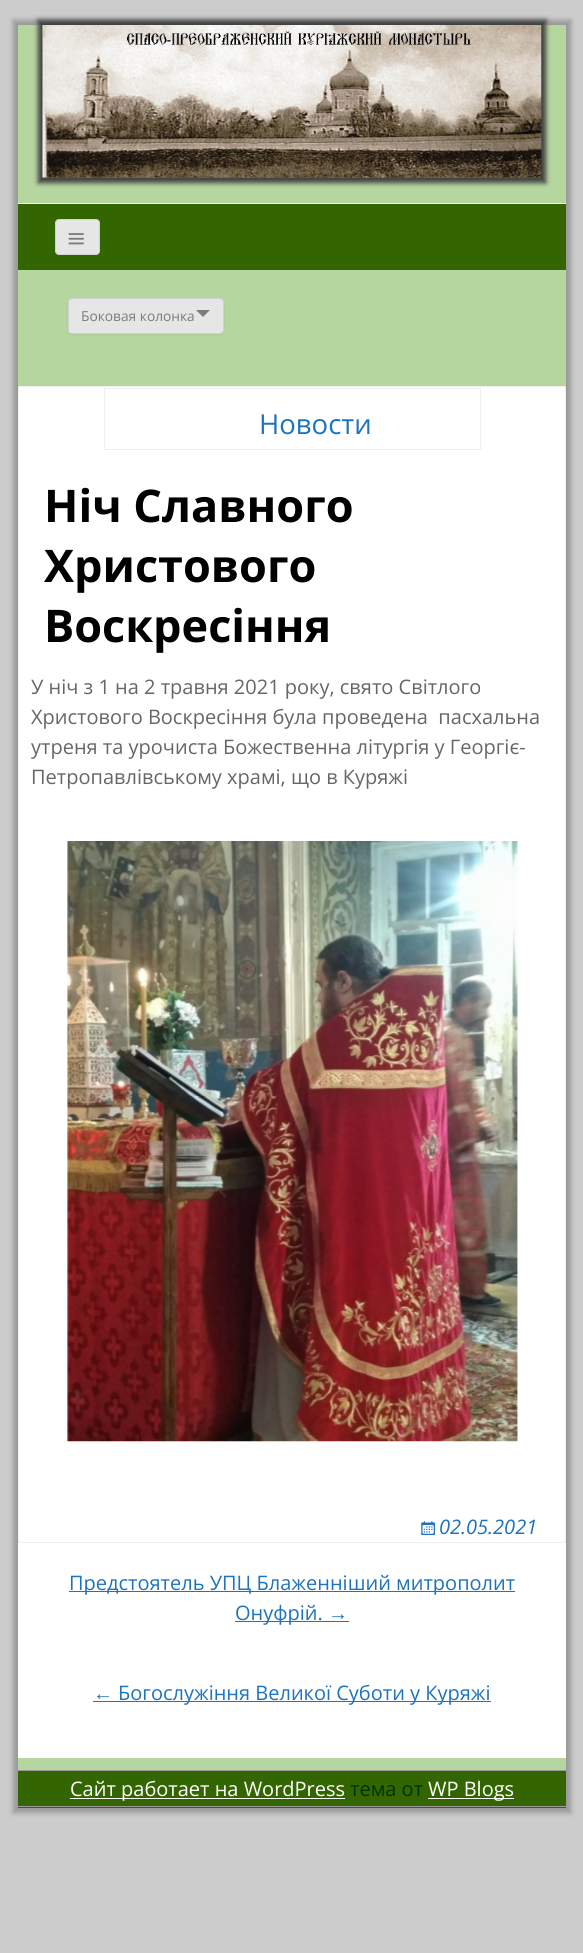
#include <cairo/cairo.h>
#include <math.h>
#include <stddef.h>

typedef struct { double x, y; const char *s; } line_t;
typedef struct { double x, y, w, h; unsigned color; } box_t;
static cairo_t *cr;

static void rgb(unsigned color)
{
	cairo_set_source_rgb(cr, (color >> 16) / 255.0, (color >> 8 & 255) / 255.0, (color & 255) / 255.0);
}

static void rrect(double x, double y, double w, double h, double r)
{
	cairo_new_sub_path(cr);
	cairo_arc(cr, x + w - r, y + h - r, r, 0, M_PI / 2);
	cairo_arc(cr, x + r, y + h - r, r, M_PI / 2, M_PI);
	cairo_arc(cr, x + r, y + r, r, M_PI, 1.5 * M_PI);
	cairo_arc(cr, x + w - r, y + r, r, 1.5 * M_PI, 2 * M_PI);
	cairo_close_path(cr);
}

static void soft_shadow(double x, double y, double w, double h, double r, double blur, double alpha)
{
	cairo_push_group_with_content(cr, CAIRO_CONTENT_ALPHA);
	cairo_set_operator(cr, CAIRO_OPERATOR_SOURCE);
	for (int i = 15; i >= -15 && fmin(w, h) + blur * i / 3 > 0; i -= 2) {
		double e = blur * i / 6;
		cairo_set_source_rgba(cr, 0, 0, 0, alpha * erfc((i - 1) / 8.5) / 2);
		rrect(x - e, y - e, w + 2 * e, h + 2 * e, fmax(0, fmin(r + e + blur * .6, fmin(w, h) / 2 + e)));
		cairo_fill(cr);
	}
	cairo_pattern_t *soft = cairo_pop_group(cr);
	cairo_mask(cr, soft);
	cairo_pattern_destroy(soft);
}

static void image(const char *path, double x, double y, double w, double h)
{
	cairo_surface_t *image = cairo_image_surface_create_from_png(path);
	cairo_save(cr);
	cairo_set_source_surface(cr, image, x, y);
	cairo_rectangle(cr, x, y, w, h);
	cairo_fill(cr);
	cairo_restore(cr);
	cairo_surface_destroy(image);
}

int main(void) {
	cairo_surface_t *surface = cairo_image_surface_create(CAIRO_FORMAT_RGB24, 583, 1953);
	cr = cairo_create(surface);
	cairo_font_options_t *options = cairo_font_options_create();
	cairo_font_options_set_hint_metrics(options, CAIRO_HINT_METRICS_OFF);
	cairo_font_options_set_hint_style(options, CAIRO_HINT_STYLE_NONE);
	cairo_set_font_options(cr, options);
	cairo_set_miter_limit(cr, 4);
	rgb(0xcccccc);
	cairo_paint(cr);
	rgb(0x999999);
	soft_shadow(13, 20, 558, 1793, 0, 2.5, 1);
	rgb(0xb6d6a0);
	cairo_rectangle(cr, 18, 25, 548, 1745);
	cairo_fill(cr);
	rgb(0x3f3f3f);
	soft_shadow(38, 20, 508, 163, 0, 2.5, 1);
	cairo_set_source_rgba(cr, 0.302, 0.592, 0.6, 0.5);
	cairo_rectangle(cr, 43, 177, 498, 1);
	cairo_fill(cr);
	image("img/1.png", 42, 25, 500, 153);
	rgb(0x336600);
	cairo_rectangle(cr, 18, 204, 548, 66);
	cairo_fill(cr);
	rgb(0xffffff);
	cairo_rectangle(cr, 18, 203, 548, 1);
	cairo_fill(cr);
	rgb(0xe6e6e6);
	rrect(55.5, 219.5, 44, 35, 3.5);
	cairo_fill_preserve(cr);
	rgb(0xd2d2d2);
	cairo_set_line_width(cr, 1);
	cairo_stroke(cr);
	image("img/2.png", 68, 233, 16, 12);
	rgb(0x404040);
	soft_shadow(68, 299, 156, 36, 4, 1, 0.1);
	rgb(0xe6e6e6);
	rrect(68.5, 298.5, 155, 35, 3.5);
	cairo_fill_preserve(cr);
	rgb(0xd2d2d2);
	cairo_stroke(cr);
	rgb(0x7c7c7c);
	cairo_new_path(cr);
	cairo_move_to(cr, 196, 310);
	cairo_line_to(cr, 210, 310);
	cairo_line_to(cr, 203, 317);
	cairo_close_path(cr);
	cairo_fill(cr);
	rgb(0xffffff);
	cairo_rectangle(cr, 18, 387, 548, 1371);
	cairo_fill(cr);
	cairo_rectangle(cr, 18.5, 386.5, 547, 1156);
	rgb(0xeeeeee);
	cairo_stroke(cr);
	cairo_rectangle(cr, 104.5, 388.5, 376, 61);
	cairo_stroke(cr);
	image("img/3.png", 67, 841, 451, 601);
	image("img/4.png", 421, 1521, 14, 14);
	{
		static const box_t items[] = {
			{69, 1591, 446, 1, 0x1e73be},
			{235, 1621, 114, 1, 0x1e73be},
			{93, 1701, 398, 1, 0x1e73be},
			{18, 1771, 548, 37, 0x336600},
			{18, 1806, 548, 1, 0x999999},
			{70, 1798, 275, 1, 0xffffff},
			{428, 1798, 86, 1, 0xffffff},
		};
		for (size_t i = 0; i < sizeof items / sizeof *items; i++) {
			rgb(items[i].color);
			cairo_rectangle(cr, items[i].x, items[i].y, items[i].w, items[i].h);
			cairo_fill(cr);
		}
	}
	cairo_select_font_face(cr, "Open Sans", CAIRO_FONT_SLANT_NORMAL, CAIRO_FONT_WEIGHT_NORMAL);
	cairo_set_font_size(cr, 13.75);
	rgb(0x7c7c7c);
	cairo_move_to(cr, 81, 321);
	cairo_show_text(cr, "Боковая колонка");
	cairo_set_font_size(cr, 27.5);
	rgb(0x1e73be);
	cairo_move_to(cr, 259, 434);
	cairo_show_text(cr, "Новости");
	cairo_select_font_face(cr, "Open Sans", CAIRO_FONT_SLANT_NORMAL, CAIRO_FONT_WEIGHT_BOLD);
	cairo_set_font_size(cr, 45);
	rgb(0x000000);
	{
		static const line_t items[] = {
			{44, 522, "Ніч Славного"},
			{44, 582, "Христового"},
			{44, 642, "Воскресіння"},
		};
		for (size_t i = 0; i < sizeof items / sizeof *items; i++) {
			cairo_move_to(cr, items[i].x, items[i].y);
			cairo_show_text(cr, items[i].s);
		}
	}
	cairo_select_font_face(cr, "Open Sans", CAIRO_FONT_SLANT_NORMAL, CAIRO_FONT_WEIGHT_NORMAL);
	cairo_set_font_size(cr, 20);
	rgb(0x666666);
	{
		static const line_t items[] = {
			{31, 694, "У ніч з 1 на 2 травня 2021 року, свято Світлого"},
			{31, 724, "Христового Воскресіння була проведена  пасхальна"},
			{31, 754, "утреня та урочиста Божественна літургія у Георгіє-"},
			{31, 784, "Петропавлівському храмі, що в Куряжі"},
		};
		for (size_t i = 0; i < sizeof items / sizeof *items; i++) {
			cairo_move_to(cr, items[i].x, items[i].y);
			cairo_show_text(cr, items[i].s);
		}
	}
	cairo_select_font_face(cr, "Open Sans", CAIRO_FONT_SLANT_ITALIC, CAIRO_FONT_WEIGHT_NORMAL);
	rgb(0x1e73be);
	cairo_move_to(cr, 439, 1534);
	cairo_show_text(cr, "02.05.2021");
	cairo_select_font_face(cr, "Open Sans", CAIRO_FONT_SLANT_NORMAL, CAIRO_FONT_WEIGHT_NORMAL);
	cairo_move_to(cr, 69, 1590);
	cairo_show_text(cr, "Предстоятель УПЦ Блаженніший митрополит");
	cairo_move_to(cr, 235, 1620);
	cairo_show_text(cr, "Онуфрій.");
	cairo_select_font_face(cr, "Liberation Sans", CAIRO_FONT_SLANT_NORMAL, CAIRO_FONT_WEIGHT_NORMAL);
	cairo_move_to(cr, 328, 1620);
	cairo_show_text(cr, "→");
	cairo_move_to(cr, 93, 1700);
	cairo_show_text(cr, "←");
	cairo_select_font_face(cr, "Open Sans", CAIRO_FONT_SLANT_NORMAL, CAIRO_FONT_WEIGHT_NORMAL);
	cairo_move_to(cr, 118, 1700);
	cairo_show_text(cr, "Богослужіння Великої Суботи у Куряжі");
	rgb(0xffffff);
	cairo_move_to(cr, 70, 1796);
	cairo_show_text(cr, "Сайт работает на WordPress");
	rgb(0x003300);
	cairo_move_to(cr, 350, 1796);
	cairo_show_text(cr, "тема от");
	rgb(0xffffff);
	cairo_move_to(cr, 428, 1796);
	cairo_show_text(cr, "WP Blogs");
	cairo_surface_write_to_png(surface, "page.png");
	cairo_font_options_destroy(options);
	cairo_destroy(cr);
	cairo_surface_destroy(surface);
	return 0;
}
